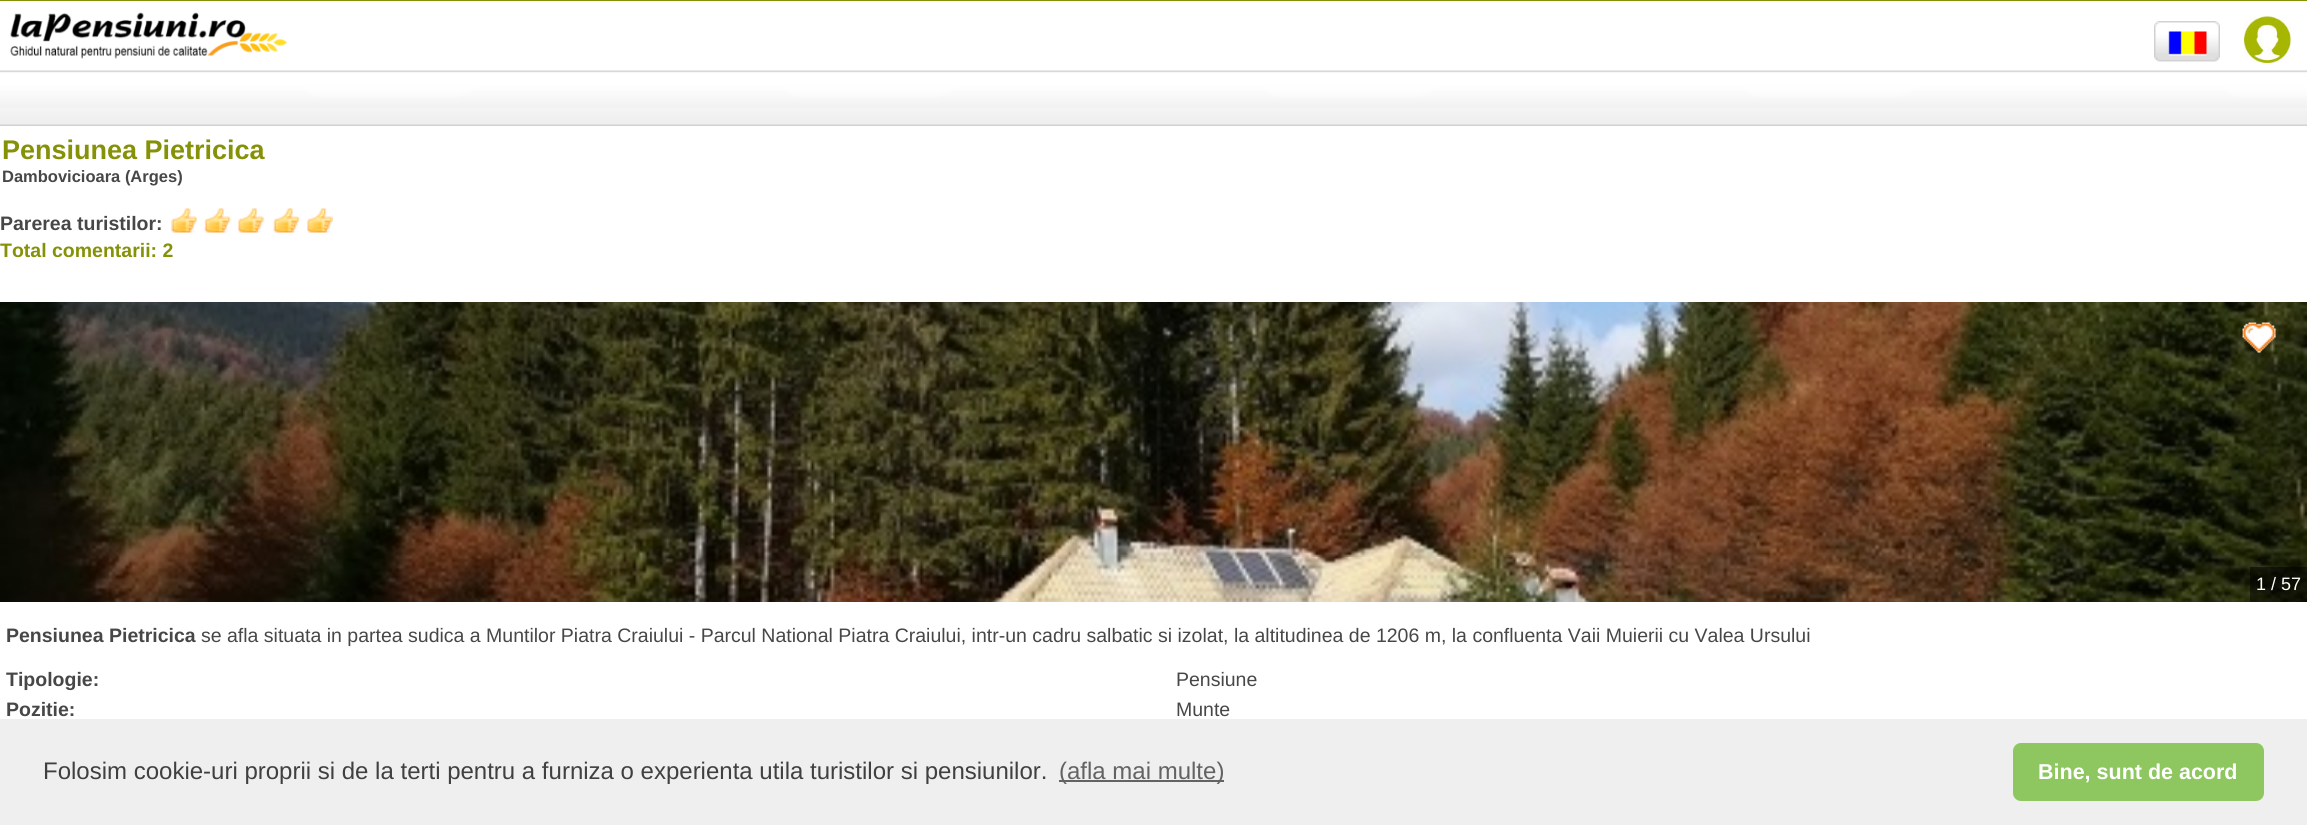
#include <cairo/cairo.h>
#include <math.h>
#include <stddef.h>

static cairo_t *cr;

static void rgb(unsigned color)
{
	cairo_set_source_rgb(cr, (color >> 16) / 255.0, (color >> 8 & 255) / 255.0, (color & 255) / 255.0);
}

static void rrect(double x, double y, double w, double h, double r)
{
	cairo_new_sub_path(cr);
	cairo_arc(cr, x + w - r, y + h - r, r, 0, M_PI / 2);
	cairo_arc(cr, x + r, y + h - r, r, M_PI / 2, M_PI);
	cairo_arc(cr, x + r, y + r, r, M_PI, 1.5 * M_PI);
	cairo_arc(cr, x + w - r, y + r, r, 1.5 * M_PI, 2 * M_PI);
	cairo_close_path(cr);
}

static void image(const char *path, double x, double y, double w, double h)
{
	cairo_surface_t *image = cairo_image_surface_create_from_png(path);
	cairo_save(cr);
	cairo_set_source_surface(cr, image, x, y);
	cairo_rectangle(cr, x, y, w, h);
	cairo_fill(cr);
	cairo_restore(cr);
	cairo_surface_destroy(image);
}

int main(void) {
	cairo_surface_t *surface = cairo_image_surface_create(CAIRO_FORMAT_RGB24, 2307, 825);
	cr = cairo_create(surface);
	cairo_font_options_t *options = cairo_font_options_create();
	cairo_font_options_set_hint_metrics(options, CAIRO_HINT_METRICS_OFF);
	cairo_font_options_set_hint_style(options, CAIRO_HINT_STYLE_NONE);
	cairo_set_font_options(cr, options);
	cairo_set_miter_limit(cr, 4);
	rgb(0xffffff);
	cairo_paint(cr);
	rgb(0x859106);
	cairo_rectangle(cr, 0, 0, 2307, 1);
	cairo_fill(cr);
	image("img/1.png", 10, 12, 277, 47);
	image("img/2.png", 2154, 21, 66, 41);
	image("img/3.png", 2244, 16, 47, 47);
	image("img/4.png", 0, 70, 2307, 56);
	image("img/5.png", 171, 208, 162, 25);
	image("img/7.png", 0, 302, 2307, 300);
	image("img/6.png", 2242, 322, 34, 31);
	cairo_set_source_rgba(cr, 0, 0, 0, 0.5);
	cairo_rectangle(cr, 2250, 567, 57, 35);
	cairo_fill(cr);
	rgb(0xefefef);
	cairo_rectangle(cr, 0, 719, 2307, 106);
	cairo_fill(cr);
	rgb(0x636363);
	cairo_rectangle(cr, 1059, 780, 165, 2);
	cairo_fill(cr);
	rgb(0x8ec760);
	rrect(2013, 743, 251, 58, 8);
	cairo_fill(cr);
	cairo_select_font_face(cr, "Liberation Sans", CAIRO_FONT_SLANT_NORMAL, CAIRO_FONT_WEIGHT_BOLD);
	cairo_set_font_size(cr, 27);
	rgb(0x859106);
	cairo_move_to(cr, 2, 159);
	cairo_show_text(cr, "Pensiunea Pietricica");
	cairo_set_font_size(cr, 16.5);
	rgb(0x474747);
	cairo_move_to(cr, 2, 182);
	cairo_show_text(cr, "Dambovicioara (Arges)");
	cairo_set_font_size(cr, 19.5);
	cairo_move_to(cr, 0, 230);
	cairo_show_text(cr, "Parerea turistilor:");
	rgb(0x859106);
	cairo_move_to(cr, 0, 257);
	cairo_show_text(cr, "Total comentarii: 2");
	cairo_select_font_face(cr, "Liberation Sans", CAIRO_FONT_SLANT_NORMAL, CAIRO_FONT_WEIGHT_NORMAL);
	cairo_set_font_size(cr, 18);
	rgb(0xffffff);
	cairo_move_to(cr, 2256, 590);
	cairo_show_text(cr, "1 / 57");
	cairo_select_font_face(cr, "Liberation Sans", CAIRO_FONT_SLANT_NORMAL, CAIRO_FONT_WEIGHT_BOLD);
	cairo_set_font_size(cr, 19.5);
	rgb(0x474747);
	cairo_move_to(cr, 6, 642);
	cairo_show_text(cr, "Pensiunea Pietricica");
	cairo_select_font_face(cr, "Liberation Sans", CAIRO_FONT_SLANT_NORMAL, CAIRO_FONT_WEIGHT_NORMAL);
	cairo_move_to(cr, 201, 642);
	cairo_show_text(cr, "se afla situata in partea sudica a Muntilor Piatra Craiului - Parcul National Piatra Craiului, intr-un cadru salbatic si izolat, la altitudinea de 1206 m, la confluenta Vaii Muierii cu Valea Ursului");
	cairo_select_font_face(cr, "Liberation Sans", CAIRO_FONT_SLANT_NORMAL, CAIRO_FONT_WEIGHT_BOLD);
	cairo_move_to(cr, 6, 686);
	cairo_show_text(cr, "Tipologie:");
	cairo_select_font_face(cr, "Liberation Sans", CAIRO_FONT_SLANT_NORMAL, CAIRO_FONT_WEIGHT_NORMAL);
	cairo_move_to(cr, 1176, 686);
	cairo_show_text(cr, "Pensiune");
	cairo_select_font_face(cr, "Liberation Sans", CAIRO_FONT_SLANT_NORMAL, CAIRO_FONT_WEIGHT_BOLD);
	cairo_move_to(cr, 6, 716);
	cairo_show_text(cr, "Pozitie:");
	cairo_select_font_face(cr, "Liberation Sans", CAIRO_FONT_SLANT_NORMAL, CAIRO_FONT_WEIGHT_NORMAL);
	cairo_move_to(cr, 1176, 716);
	cairo_show_text(cr, "Munte");
	cairo_set_font_size(cr, 24);
	rgb(0x404040);
	cairo_move_to(cr, 43, 779);
	cairo_show_text(cr, "Folosim cookie-uri proprii si de la terti pentru a furniza o experienta utila turistilor si pensiunilor.");
	rgb(0x636363);
	cairo_move_to(cr, 1059, 779);
	cairo_show_text(cr, "(afla mai multe)");
	cairo_select_font_face(cr, "Liberation Sans", CAIRO_FONT_SLANT_NORMAL, CAIRO_FONT_WEIGHT_BOLD);
	cairo_set_font_size(cr, 21.5);
	rgb(0xffffff);
	cairo_move_to(cr, 2038, 779);
	cairo_show_text(cr, "Bine, sunt de acord");
	cairo_surface_write_to_png(surface, "page.png");
	cairo_font_options_destroy(options);
	cairo_destroy(cr);
	cairo_surface_destroy(surface);
	return 0;
}
